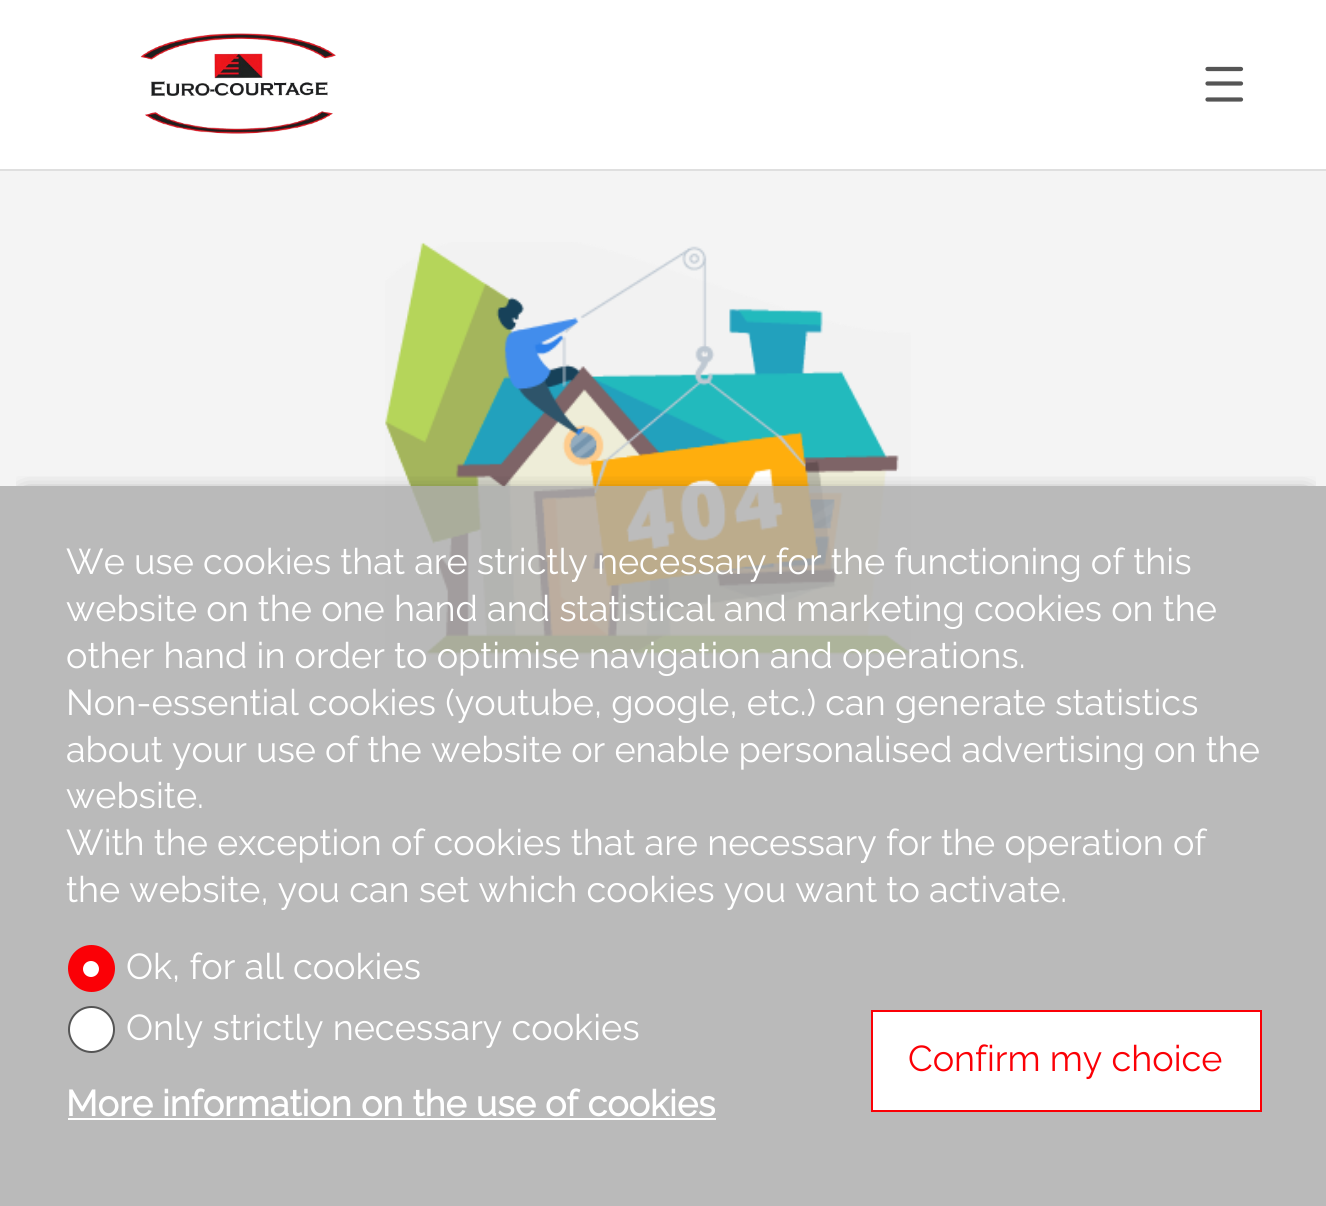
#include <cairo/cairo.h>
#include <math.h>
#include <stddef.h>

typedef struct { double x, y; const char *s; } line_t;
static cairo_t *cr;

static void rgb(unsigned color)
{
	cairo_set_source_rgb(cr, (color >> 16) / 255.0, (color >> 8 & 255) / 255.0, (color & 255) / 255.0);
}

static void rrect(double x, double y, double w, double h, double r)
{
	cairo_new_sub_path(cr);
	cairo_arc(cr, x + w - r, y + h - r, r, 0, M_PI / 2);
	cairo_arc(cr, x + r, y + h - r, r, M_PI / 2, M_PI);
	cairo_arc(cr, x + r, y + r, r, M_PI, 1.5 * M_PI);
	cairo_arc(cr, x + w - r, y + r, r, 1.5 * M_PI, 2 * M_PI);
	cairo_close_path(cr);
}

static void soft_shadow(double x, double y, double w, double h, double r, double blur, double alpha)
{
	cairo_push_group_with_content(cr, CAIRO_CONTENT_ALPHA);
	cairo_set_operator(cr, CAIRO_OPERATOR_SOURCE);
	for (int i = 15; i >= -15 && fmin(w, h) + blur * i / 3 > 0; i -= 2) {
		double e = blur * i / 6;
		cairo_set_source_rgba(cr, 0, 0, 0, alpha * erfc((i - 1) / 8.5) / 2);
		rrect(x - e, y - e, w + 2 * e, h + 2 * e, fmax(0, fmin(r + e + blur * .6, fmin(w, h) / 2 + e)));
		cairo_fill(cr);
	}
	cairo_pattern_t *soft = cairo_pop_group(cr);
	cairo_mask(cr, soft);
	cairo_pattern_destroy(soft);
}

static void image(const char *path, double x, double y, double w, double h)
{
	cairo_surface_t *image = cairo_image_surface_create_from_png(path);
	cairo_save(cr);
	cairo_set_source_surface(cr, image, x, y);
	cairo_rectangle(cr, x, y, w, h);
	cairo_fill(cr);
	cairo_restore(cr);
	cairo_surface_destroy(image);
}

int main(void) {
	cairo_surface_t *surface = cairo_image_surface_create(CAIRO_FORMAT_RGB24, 1326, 1206);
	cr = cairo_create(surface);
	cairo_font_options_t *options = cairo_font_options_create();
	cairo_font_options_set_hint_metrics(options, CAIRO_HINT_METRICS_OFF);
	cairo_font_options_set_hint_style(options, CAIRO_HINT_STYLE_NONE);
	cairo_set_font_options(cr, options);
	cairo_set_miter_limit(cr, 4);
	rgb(0xffffff);
	cairo_paint(cr);
	rgb(0xdfdfdf);
	cairo_rectangle(cr, 0, 169, 1326, 2);
	cairo_fill(cr);
	image("img/1.png", 140, 33, 196, 101);
	cairo_new_path(cr);
	cairo_move_to(cr, 1207.5, 69);
	cairo_line_to(cr, 1241, 69);
	cairo_move_to(cr, 1207.5, 83.5);
	cairo_line_to(cr, 1241, 83.5);
	cairo_move_to(cr, 1207.5, 99.5);
	cairo_line_to(cr, 1241, 99.5);
	rgb(0x555555);
	cairo_set_line_width(cr, 4.2);
	cairo_set_line_cap(cr, CAIRO_LINE_CAP_ROUND);
	cairo_stroke(cr);
	rgb(0xf4f4f4);
	cairo_rectangle(cr, 0, 171, 1326, 1035);
	cairo_fill(cr);
	image("img/2.png", 385, 242, 526, 413);
	cairo_save(cr);
	cairo_rectangle(cr, 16, 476, 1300, 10);
	cairo_clip(cr);
	rgb(0x000000);
	soft_shadow(25, 497, 1282, 675, 0, 11, 0.66);
	cairo_restore(cr);
	cairo_set_source_rgba(cr, 0.671, 0.671, 0.671, 0.8);
	cairo_rectangle(cr, 0, 486, 1326, 720);
	cairo_fill(cr);
	rgb(0xfb0006);
	cairo_arc(cr, 91.5, 968.5, 22.5, 0, 2 * M_PI);
	cairo_fill_preserve(cr);
	cairo_set_line_width(cr, 2);
	cairo_set_line_cap(cr, CAIRO_LINE_CAP_BUTT);
	cairo_stroke(cr);
	rgb(0xffffff);
	cairo_arc(cr, 91, 969, 8, 0, 2 * M_PI);
	cairo_fill(cr);
	cairo_arc(cr, 91.5, 1029.5, 22.5, 0, 2 * M_PI);
	cairo_fill_preserve(cr);
	rgb(0x555555);
	cairo_stroke(cr);
	rgb(0xffffff);
	cairo_rectangle(cr, 68, 1118, 648, 2);
	cairo_fill(cr);
	cairo_rectangle(cr, 872, 1011, 389, 100);
	cairo_fill_preserve(cr);
	rgb(0xfb0006);
	cairo_stroke(cr);
	cairo_select_font_face(cr, "Raleway Thin", CAIRO_FONT_SLANT_NORMAL, CAIRO_FONT_WEIGHT_NORMAL);
	cairo_set_font_size(cr, 36);
	rgb(0xffffff);
	{
		static const line_t items[] = {
			{66, 574, "We use cookies that are strictly necessary for the functioning of this"},
			{66, 621, "website on the one hand and statistical and marketing cookies on the"},
			{66, 668, "other hand in order to optimise navigation and operations."},
			{66, 715, "Non-essential cookies (youtube, google, etc.) can generate statistics"},
			{66, 762, "about your use of the website or enable personalised advertising on the"},
			{66, 808, "website."},
			{66, 855, "With the exception of cookies that are necessary for the operation of"},
			{66, 902, "the website, you can set which cookies you want to activate."},
			{126, 979, "Ok, for all cookies"},
			{126, 1040, "Only strictly necessary cookies"},
		};
		for (size_t i = 0; i < sizeof items / sizeof *items; i++) {
			cairo_move_to(cr, items[i].x, items[i].y);
			cairo_show_text(cr, items[i].s);
		}
	}
	cairo_select_font_face(cr, "Raleway", CAIRO_FONT_SLANT_NORMAL, CAIRO_FONT_WEIGHT_BOLD);
	cairo_move_to(cr, 66, 1116);
	cairo_show_text(cr, "More information on the use of cookies");
	cairo_select_font_face(cr, "Raleway Thin", CAIRO_FONT_SLANT_NORMAL, CAIRO_FONT_WEIGHT_NORMAL);
	rgb(0xfb0006);
	cairo_move_to(cr, 908, 1071);
	cairo_show_text(cr, "Confirm my choice");
	cairo_surface_write_to_png(surface, "page.png");
	cairo_font_options_destroy(options);
	cairo_destroy(cr);
	cairo_surface_destroy(surface);
	return 0;
}
